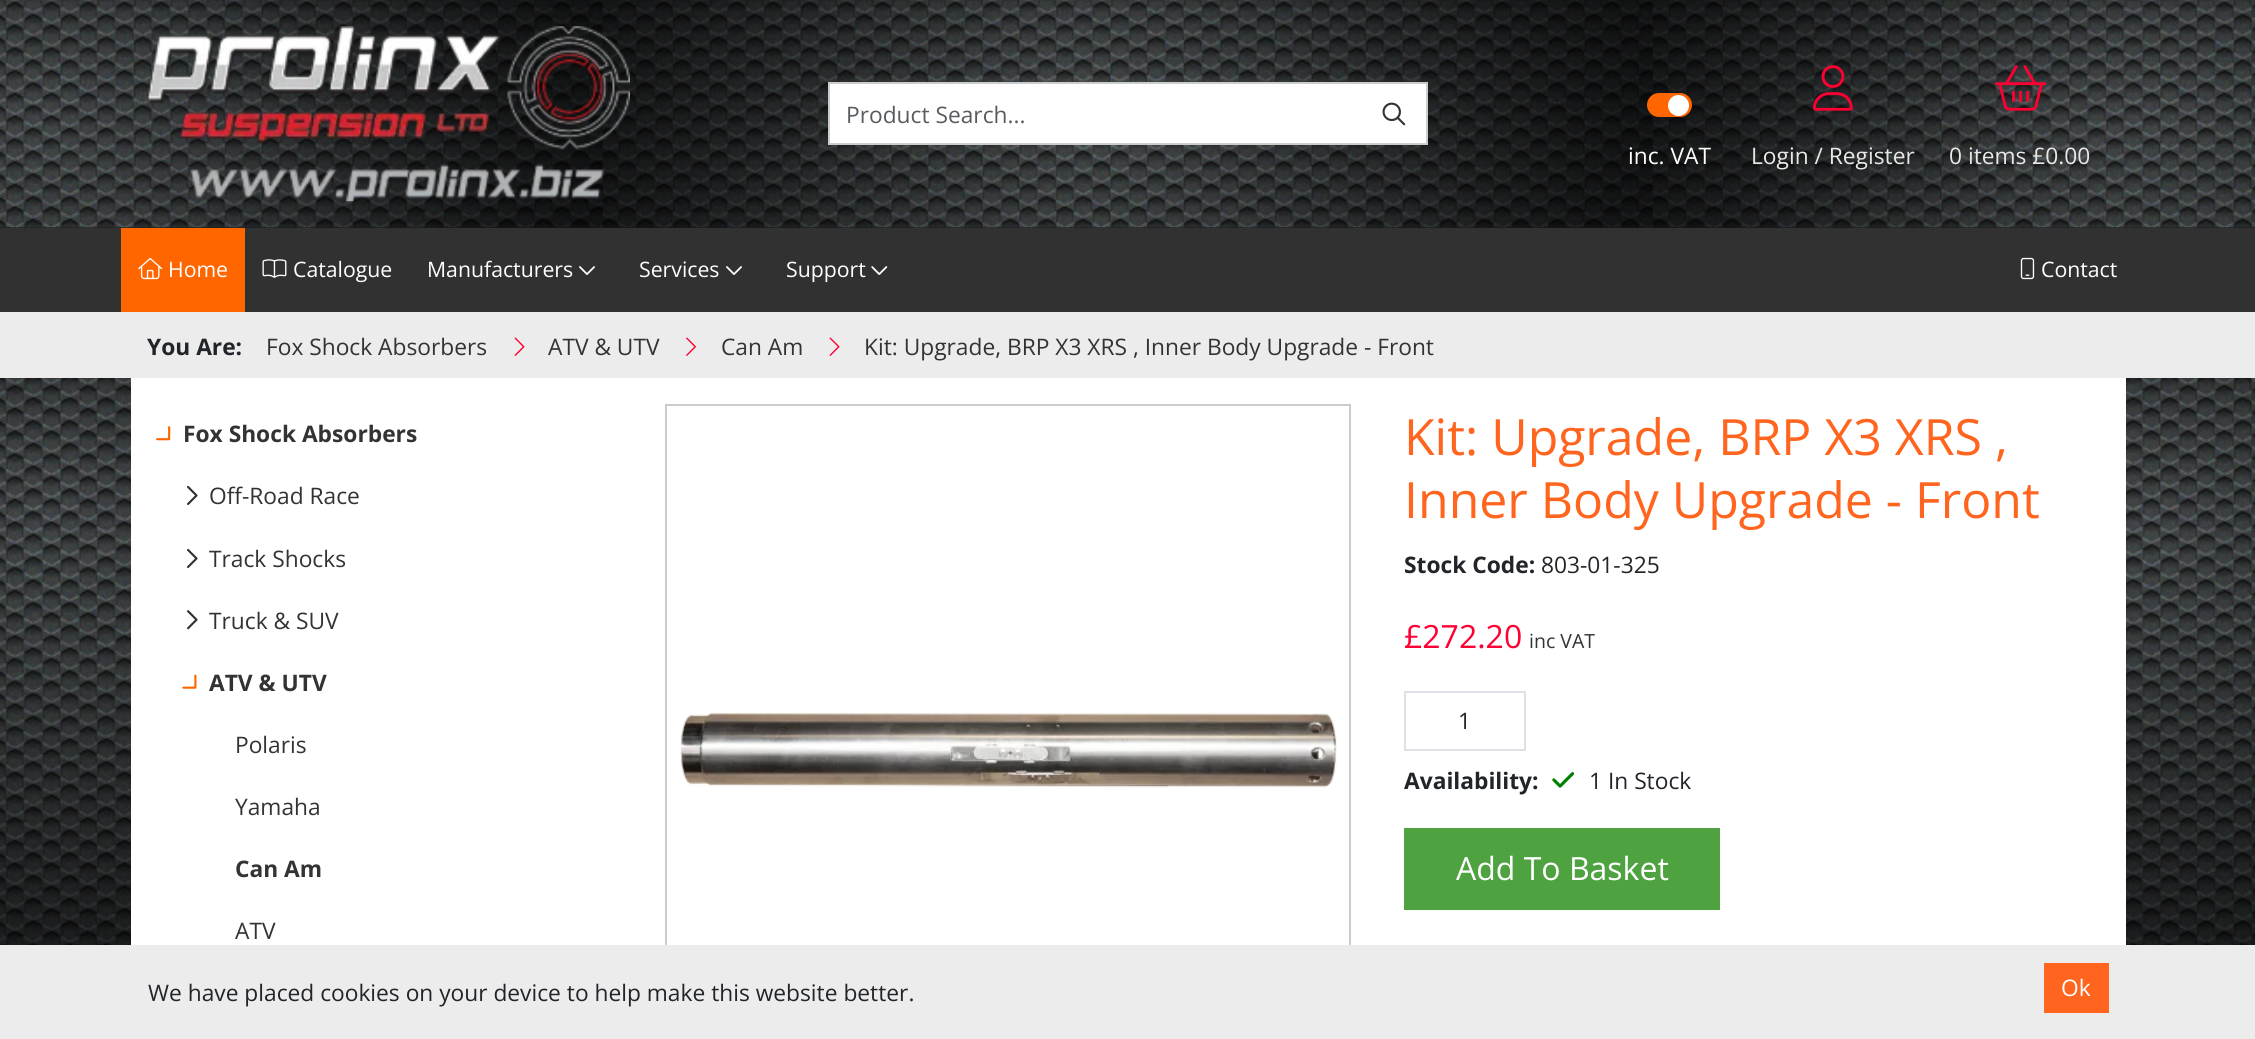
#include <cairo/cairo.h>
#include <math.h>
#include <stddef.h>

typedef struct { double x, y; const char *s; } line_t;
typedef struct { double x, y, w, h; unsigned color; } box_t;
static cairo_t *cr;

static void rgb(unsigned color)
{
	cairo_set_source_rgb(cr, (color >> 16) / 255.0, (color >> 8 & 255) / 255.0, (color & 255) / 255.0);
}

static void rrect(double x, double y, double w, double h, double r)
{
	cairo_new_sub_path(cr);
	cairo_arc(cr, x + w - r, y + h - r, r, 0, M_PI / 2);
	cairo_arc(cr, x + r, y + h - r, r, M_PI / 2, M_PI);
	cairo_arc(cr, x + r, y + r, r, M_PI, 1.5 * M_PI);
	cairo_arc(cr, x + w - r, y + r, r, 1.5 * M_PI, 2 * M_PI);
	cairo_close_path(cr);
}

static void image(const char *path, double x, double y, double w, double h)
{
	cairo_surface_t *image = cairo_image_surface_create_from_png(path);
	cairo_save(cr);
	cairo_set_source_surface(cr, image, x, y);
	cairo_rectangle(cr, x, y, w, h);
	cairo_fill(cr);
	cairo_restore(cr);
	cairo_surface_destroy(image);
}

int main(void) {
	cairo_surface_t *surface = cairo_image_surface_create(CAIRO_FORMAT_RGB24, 2255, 1039);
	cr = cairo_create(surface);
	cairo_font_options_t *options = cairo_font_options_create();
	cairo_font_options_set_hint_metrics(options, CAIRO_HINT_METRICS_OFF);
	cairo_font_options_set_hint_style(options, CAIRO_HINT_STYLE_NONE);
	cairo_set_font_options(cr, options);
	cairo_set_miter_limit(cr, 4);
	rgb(0xffffff);
	cairo_paint(cr);
	image("img/1.png", 0, 378, 2255, 567);
	rgb(0x151515);
	cairo_rectangle(cr, 0, 227, 2255, 1);
	cairo_fill(cr);
	image("img/2.png", 0, 0, 2255, 228);
	image("img/3.png", 147, 26, 483, 176);
	rgb(0xffffff);
	cairo_rectangle(cr, 829, 83, 598, 61);
	cairo_fill_preserve(cr);
	rgb(0xcccccc);
	cairo_stroke(cr);
	image("img/4.png", 1382, 102, 24, 24);
	rgb(0xff6600);
	rrect(1647, 93, 45, 24, 12);
	cairo_fill(cr);
	rgb(0xffffff);
	cairo_arc(cr, 1678.5, 105.5, 10.5, 0, 2 * M_PI);
	cairo_fill(cr);
	image("img/5.png", 1813, 65, 40, 46);
	image("img/6.png", 1995, 65, 52, 46);
	rgb(0x313131);
	cairo_rectangle(cr, 0, 228, 2255, 84);
	cairo_fill(cr);
	rgb(0xff6600);
	cairo_rectangle(cr, 121, 228, 124, 84);
	cairo_fill(cr);
	image("img/7.png", 138, 257, 25, 23);
	image("img/8.png", 262, 259, 25, 19);
	image("img/9.png", 579, 266, 16, 9);
	image("img/9.png", 726, 266, 16, 9);
	image("img/10.png", 871, 266, 17, 9);
	image("img/11.png", 2020, 257, 15, 23);
	rgb(0xececec);
	cairo_rectangle(cr, 0, 312, 2255, 66);
	cairo_fill(cr);
	image("img/12.png", 514, 337, 11, 19);
	image("img/13.png", 686, 337, 10, 19);
	image("img/12.png", 829, 337, 11, 19);
	rgb(0xffffff);
	cairo_rectangle(cr, 131, 378, 1995, 567);
	cairo_fill(cr);
	image("img/14.png", 156, 426, 15, 15);
	image("img/15.png", 187, 485, 11, 20);
	image("img/15.png", 187, 548, 11, 20);
	image("img/16.png", 187, 610, 11, 20);
	image("img/17.png", 182, 674, 15, 15);
	cairo_rectangle(cr, 666, 405, 684, 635);
	rgb(0xcccccc);
	cairo_stroke(cr);
	image("img/18.png", 680, 712, 657, 76);
	cairo_rectangle(cr, 1405, 692, 120, 58);
	rgb(0xdee2e6);
	cairo_stroke(cr);
	image("img/19.png", 1552, 772, 23, 16);
	{
		static const box_t items[] = {
			{1404, 828, 316, 82, 0x4ea240},
			{0, 945, 2255, 94, 0xececec},
			{2044, 963, 65, 50, 0xff651e},
		};
		for (size_t i = 0; i < sizeof items / sizeof *items; i++) {
			rgb(items[i].color);
			cairo_rectangle(cr, items[i].x, items[i].y, items[i].w, items[i].h);
			cairo_fill(cr);
		}
	}
	cairo_select_font_face(cr, "Open Sans", CAIRO_FONT_SLANT_NORMAL, CAIRO_FONT_WEIGHT_NORMAL);
	cairo_set_font_size(cr, 22.75);
	rgb(0x595c5f);
	cairo_move_to(cr, 846, 123);
	cairo_show_text(cr, "Product Search...");
	rgb(0xffffff);
	cairo_move_to(cr, 1628, 164);
	cairo_show_text(cr, "inc. VAT");
	rgb(0xe7e7e7);
	cairo_move_to(cr, 1751, 164);
	cairo_show_text(cr, "Login / Register");
	cairo_move_to(cr, 1949, 164);
	cairo_show_text(cr, "0 items £0.00");
	cairo_set_font_size(cr, 21.25);
	rgb(0xffffff);
	{
		static const line_t items[] = {
			{168, 277, "Home"},
			{293, 277, "Catalogue"},
			{427, 277, "Manufacturers"},
			{639, 277, "Services"},
			{786, 277, "Support"},
			{2041, 277, "Contact"},
		};
		for (size_t i = 0; i < sizeof items / sizeof *items; i++) {
			cairo_move_to(cr, items[i].x, items[i].y);
			cairo_show_text(cr, items[i].s);
		}
	}
	cairo_select_font_face(cr, "Open Sans", CAIRO_FONT_SLANT_NORMAL, CAIRO_FONT_WEIGHT_BOLD);
	cairo_set_font_size(cr, 22.75);
	rgb(0x212529);
	cairo_move_to(cr, 147, 355);
	cairo_show_text(cr, "You Are:");
	cairo_select_font_face(cr, "Open Sans", CAIRO_FONT_SLANT_NORMAL, CAIRO_FONT_WEIGHT_NORMAL);
	rgb(0x333333);
	{
		static const line_t items[] = {
			{266, 355, "Fox Shock Absorbers"},
			{548, 355, "ATV & UTV"},
			{721, 355, "Can Am"},
			{864, 355, "Kit: Upgrade, BRP X3 XRS , Inner Body Upgrade - Front"},
		};
		for (size_t i = 0; i < sizeof items / sizeof *items; i++) {
			cairo_move_to(cr, items[i].x, items[i].y);
			cairo_show_text(cr, items[i].s);
		}
	}
	cairo_select_font_face(cr, "Open Sans", CAIRO_FONT_SLANT_NORMAL, CAIRO_FONT_WEIGHT_BOLD);
	cairo_move_to(cr, 183, 442);
	cairo_show_text(cr, "Fox Shock Absorbers");
	cairo_select_font_face(cr, "Open Sans", CAIRO_FONT_SLANT_NORMAL, CAIRO_FONT_WEIGHT_NORMAL);
	{
		static const line_t items[] = {
			{209, 504, "Off-Road Race"},
			{209, 567, "Track Shocks"},
			{209, 629, "Truck & SUV"},
		};
		for (size_t i = 0; i < sizeof items / sizeof *items; i++) {
			cairo_move_to(cr, items[i].x, items[i].y);
			cairo_show_text(cr, items[i].s);
		}
	}
	cairo_select_font_face(cr, "Open Sans", CAIRO_FONT_SLANT_NORMAL, CAIRO_FONT_WEIGHT_BOLD);
	cairo_move_to(cr, 209, 691);
	cairo_show_text(cr, "ATV & UTV");
	cairo_select_font_face(cr, "Open Sans", CAIRO_FONT_SLANT_NORMAL, CAIRO_FONT_WEIGHT_NORMAL);
	cairo_move_to(cr, 235, 753);
	cairo_show_text(cr, "Polaris");
	cairo_move_to(cr, 235, 815);
	cairo_show_text(cr, "Yamaha");
	cairo_select_font_face(cr, "Open Sans", CAIRO_FONT_SLANT_NORMAL, CAIRO_FONT_WEIGHT_BOLD);
	cairo_move_to(cr, 235, 877);
	cairo_show_text(cr, "Can Am");
	cairo_select_font_face(cr, "Open Sans", CAIRO_FONT_SLANT_NORMAL, CAIRO_FONT_WEIGHT_NORMAL);
	cairo_move_to(cr, 235, 939);
	cairo_show_text(cr, "ATV");
	cairo_set_font_size(cr, 50);
	rgb(0xff651e);
	cairo_move_to(cr, 1404, 455);
	cairo_show_text(cr, "Kit: Upgrade, BRP X3 XRS ,");
	cairo_move_to(cr, 1404, 518);
	cairo_show_text(cr, "Inner Body Upgrade - Front");
	cairo_select_font_face(cr, "Open Sans", CAIRO_FONT_SLANT_NORMAL, CAIRO_FONT_WEIGHT_BOLD);
	cairo_set_font_size(cr, 22.75);
	rgb(0x212529);
	cairo_move_to(cr, 1404, 573);
	cairo_show_text(cr, "Stock Code:");
	cairo_select_font_face(cr, "Open Sans", CAIRO_FONT_SLANT_NORMAL, CAIRO_FONT_WEIGHT_NORMAL);
	cairo_move_to(cr, 1541, 573);
	cairo_show_text(cr, "803-01-325");
	cairo_set_font_size(cr, 32);
	rgb(0xff0033);
	cairo_move_to(cr, 1404, 648);
	cairo_show_text(cr, "£272.20");
	cairo_set_font_size(cr, 19.5);
	rgb(0x333333);
	cairo_move_to(cr, 1529, 648);
	cairo_show_text(cr, "inc VAT");
	cairo_set_font_size(cr, 22.75);
	rgb(0x212529);
	cairo_move_to(cr, 1458, 729);
	cairo_show_text(cr, "1");
	cairo_select_font_face(cr, "Open Sans", CAIRO_FONT_SLANT_NORMAL, CAIRO_FONT_WEIGHT_BOLD);
	cairo_move_to(cr, 1404, 789);
	cairo_show_text(cr, "Availability:");
	cairo_select_font_face(cr, "Open Sans", CAIRO_FONT_SLANT_NORMAL, CAIRO_FONT_WEIGHT_NORMAL);
	cairo_move_to(cr, 1589, 789);
	cairo_show_text(cr, "1 In Stock");
	cairo_set_font_size(cr, 32);
	rgb(0xffffff);
	cairo_move_to(cr, 1456, 880);
	cairo_show_text(cr, "Add To Basket");
	cairo_set_font_size(cr, 22.75);
	rgb(0x212529);
	cairo_move_to(cr, 148, 1001);
	cairo_show_text(cr, "We have placed cookies on your device to help make this website better.");
	rgb(0xffffff);
	cairo_move_to(cr, 2061, 996);
	cairo_show_text(cr, "Ok");
	cairo_surface_write_to_png(surface, "page.png");
	cairo_font_options_destroy(options);
	cairo_destroy(cr);
	cairo_surface_destroy(surface);
	return 0;
}
